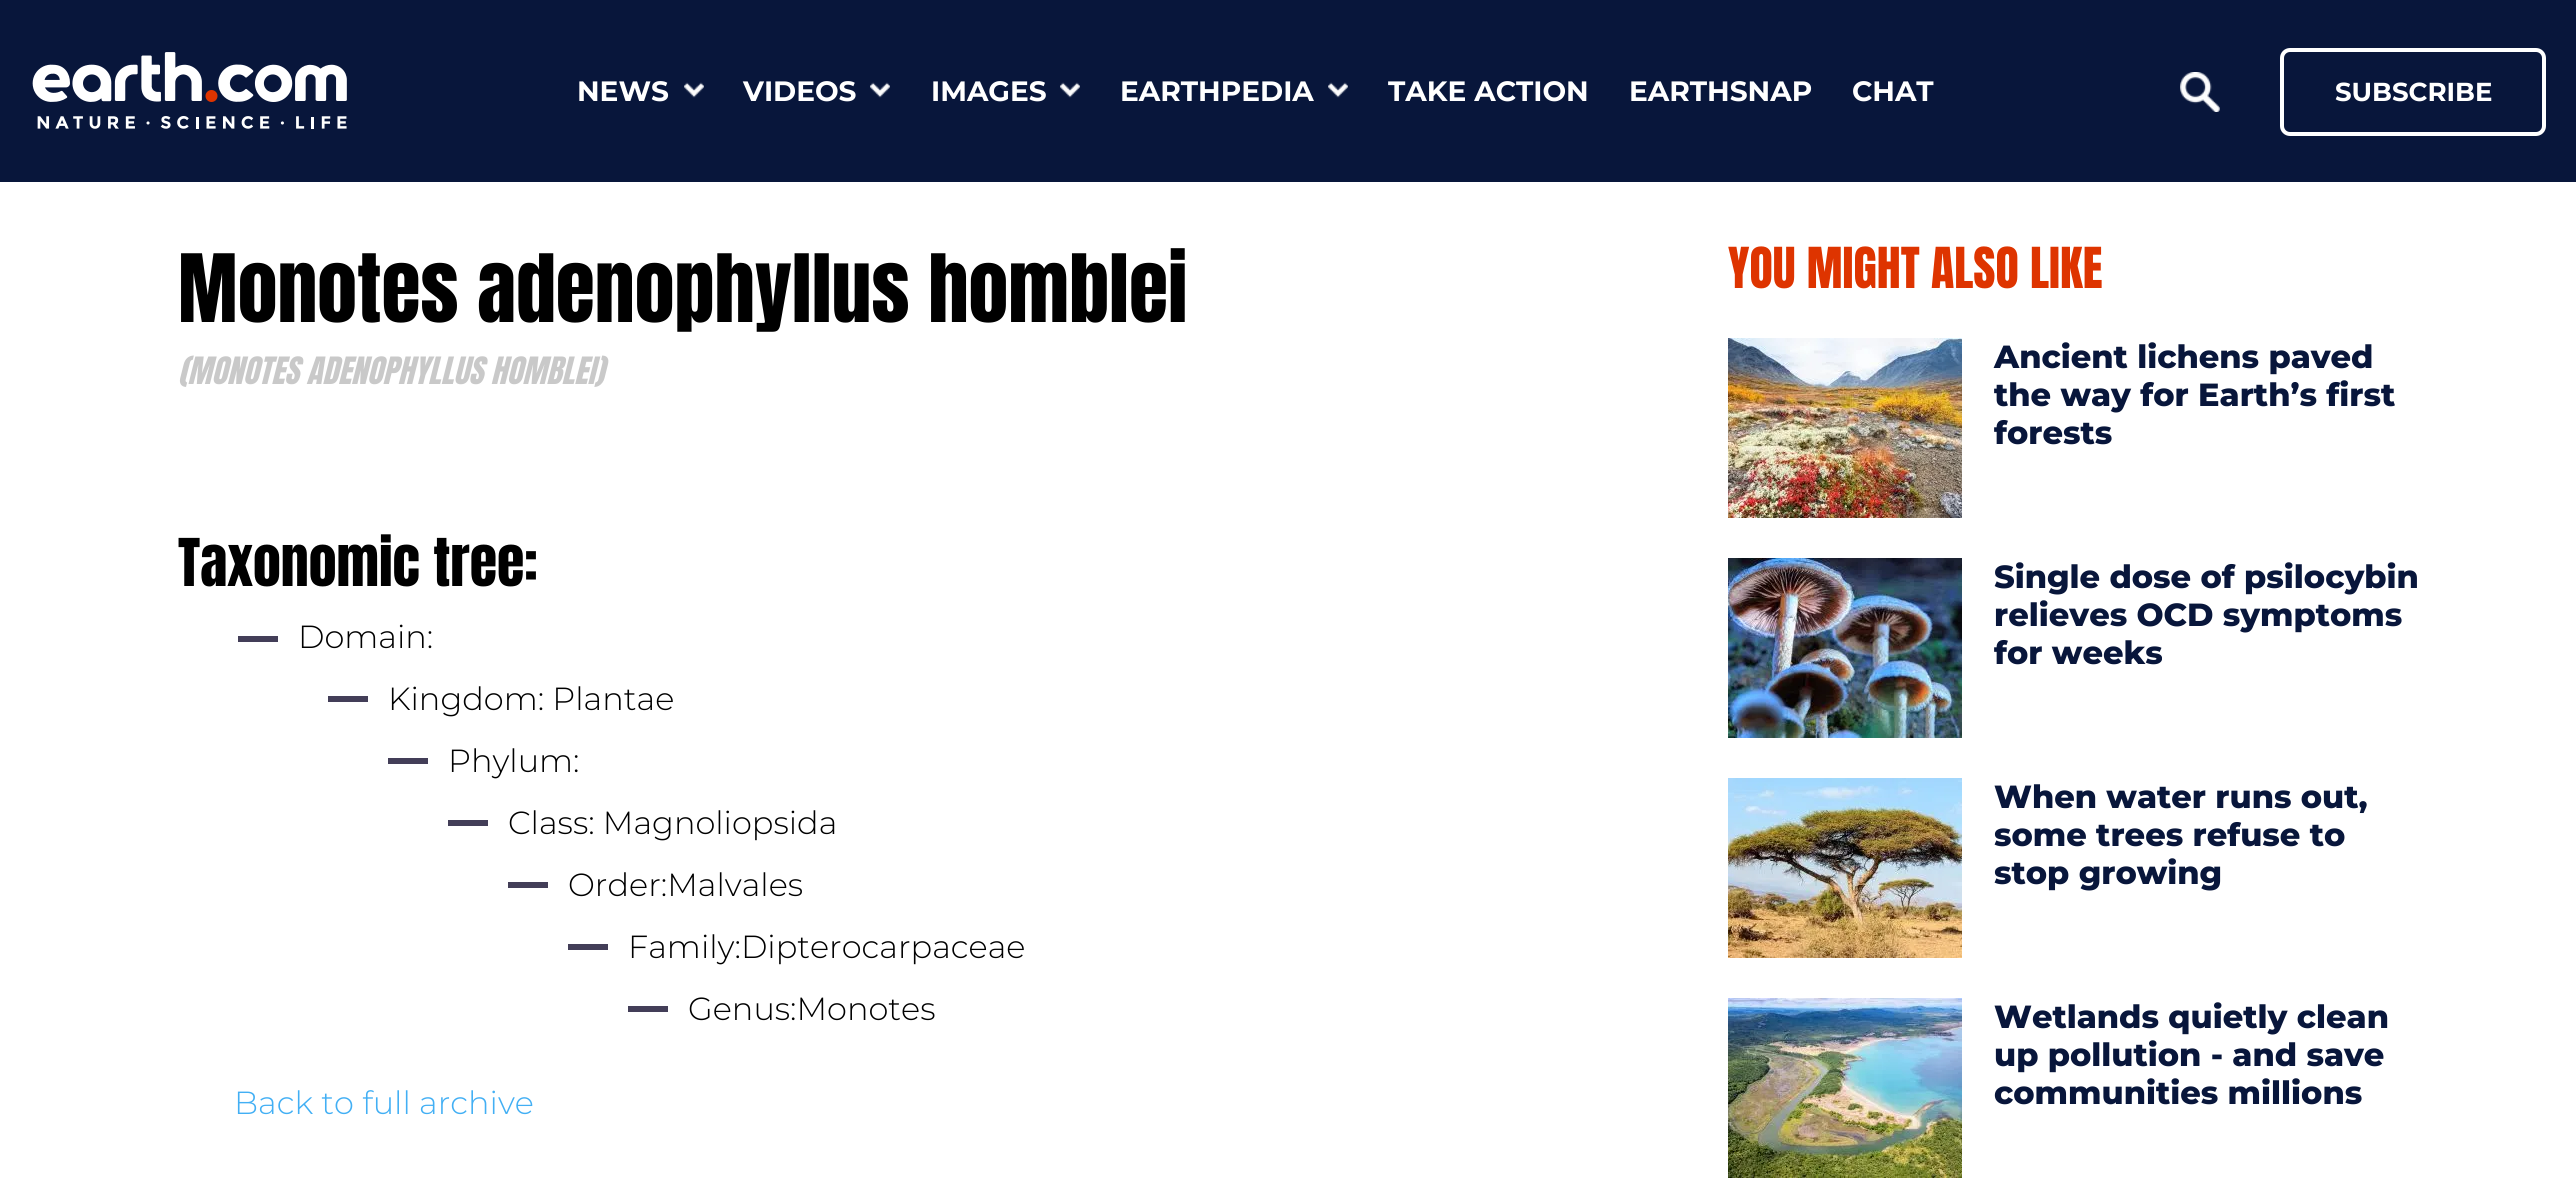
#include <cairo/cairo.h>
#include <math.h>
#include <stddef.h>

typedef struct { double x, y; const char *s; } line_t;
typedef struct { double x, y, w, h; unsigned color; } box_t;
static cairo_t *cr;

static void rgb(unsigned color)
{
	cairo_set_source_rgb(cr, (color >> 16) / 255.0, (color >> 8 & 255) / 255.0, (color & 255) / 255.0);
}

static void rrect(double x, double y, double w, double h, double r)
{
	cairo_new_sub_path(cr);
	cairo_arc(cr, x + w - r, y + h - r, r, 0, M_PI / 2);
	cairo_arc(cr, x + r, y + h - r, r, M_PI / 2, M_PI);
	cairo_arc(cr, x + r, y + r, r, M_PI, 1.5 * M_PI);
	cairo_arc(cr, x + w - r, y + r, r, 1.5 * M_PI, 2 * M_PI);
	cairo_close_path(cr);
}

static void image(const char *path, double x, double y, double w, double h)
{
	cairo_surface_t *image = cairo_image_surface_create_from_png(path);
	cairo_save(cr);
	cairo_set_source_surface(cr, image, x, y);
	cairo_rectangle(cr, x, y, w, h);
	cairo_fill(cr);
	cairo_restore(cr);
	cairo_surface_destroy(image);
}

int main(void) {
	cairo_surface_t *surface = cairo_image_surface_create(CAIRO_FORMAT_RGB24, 2576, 1187);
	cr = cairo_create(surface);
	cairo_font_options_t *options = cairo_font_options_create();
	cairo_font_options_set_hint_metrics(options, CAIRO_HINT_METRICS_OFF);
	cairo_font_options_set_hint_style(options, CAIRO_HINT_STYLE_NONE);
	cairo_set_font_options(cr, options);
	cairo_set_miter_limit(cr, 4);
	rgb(0xffffff);
	cairo_paint(cr);
	rgb(0x08163b);
	cairo_rectangle(cr, 0, 0, 2576, 182);
	cairo_fill(cr);
	image("img/1.png", 32, 52, 315, 77);
	image("img/2.png", 684, 82, 20, 16);
	image("img/3.png", 870, 82, 20, 16);
	image("img/2.png", 1060, 82, 20, 16);
	image("img/2.png", 1328, 82, 20, 16);
	image("img/4.png", 2180, 72, 40, 40);
	rrect(2282, 50, 262, 84, 8);
	rgb(0xffffff);
	cairo_set_line_width(cr, 4);
	cairo_stroke(cr);
	{
		static const box_t items[] = {
			{238, 636, 40, 6, 0x433e58},
			{328, 696, 40, 6, 0x433e58},
			{388, 758, 40, 6, 0x433e58},
			{448, 820, 40, 6, 0x433e58},
			{508, 882, 40, 6, 0x433e58},
			{568, 944, 40, 6, 0x433e58},
			{628, 1006, 40, 6, 0x433e58},
		};
		for (size_t i = 0; i < sizeof items / sizeof *items; i++) {
			rgb(items[i].color);
			cairo_rectangle(cr, items[i].x, items[i].y, items[i].w, items[i].h);
			cairo_fill(cr);
		}
	}
	image("img/5.png", 1728, 338, 234, 180);
	image("img/6.png", 1728, 558, 234, 180);
	image("img/7.png", 1728, 778, 234, 180);
	image("img/8.png", 1728, 998, 234, 180);
	cairo_select_font_face(cr, "Montserrat", CAIRO_FONT_SLANT_NORMAL, CAIRO_FONT_WEIGHT_BOLD);
	cairo_set_font_size(cr, 28);
	rgb(0xffffff);
	{
		static const line_t items[] = {
			{577, 101, "NEWS"},
			{743, 101, "VIDEOS"},
			{931, 101, "IMAGES"},
			{1120, 101, "EARTHPEDIA"},
			{1388, 101, "TAKE ACTION"},
			{1629, 101, "EARTHSNAP"},
			{1852, 101, "CHAT"},
		};
		for (size_t i = 0; i < sizeof items / sizeof *items; i++) {
			cairo_move_to(cr, items[i].x, items[i].y);
			cairo_show_text(cr, items[i].s);
		}
	}
	cairo_set_font_size(cr, 26);
	cairo_move_to(cr, 2335, 101);
	cairo_show_text(cr, "SUBSCRIBE");
	cairo_select_font_face(cr, "Anton", CAIRO_FONT_SLANT_NORMAL, CAIRO_FONT_WEIGHT_NORMAL);
	cairo_set_font_size(cr, 80);
	rgb(0x000000);
	cairo_move_to(cr, 178, 322);
	cairo_show_text(cr, "Monotes adenophyllus homblei");
	cairo_select_font_face(cr, "Anton", CAIRO_FONT_SLANT_ITALIC, CAIRO_FONT_WEIGHT_NORMAL);
	cairo_set_font_size(cr, 32);
	rgb(0xc9c9c9);
	cairo_move_to(cr, 178, 384);
	cairo_show_text(cr, "(MONOTES ADENOPHYLLUS HOMBLEI)");
	cairo_select_font_face(cr, "Anton", CAIRO_FONT_SLANT_NORMAL, CAIRO_FONT_WEIGHT_NORMAL);
	cairo_set_font_size(cr, 56);
	rgb(0x000000);
	cairo_move_to(cr, 178, 586);
	cairo_show_text(cr, "Taxonomic tree:");
	cairo_select_font_face(cr, "Montserrat Light", CAIRO_FONT_SLANT_NORMAL, CAIRO_FONT_WEIGHT_NORMAL);
	cairo_set_font_size(cr, 32);
	{
		static const line_t items[] = {
			{298, 648, "Domain:"},
			{388, 710, "Kingdom: Plantae"},
			{448, 772, "Phylum:"},
			{508, 834, "Class: Magnoliopsida"},
			{568, 896, "Order:Malvales"},
			{628, 958, "Family:Dipterocarpaceae"},
			{688, 1020, "Genus:Monotes"},
		};
		for (size_t i = 0; i < sizeof items / sizeof *items; i++) {
			cairo_move_to(cr, items[i].x, items[i].y);
			cairo_show_text(cr, items[i].s);
		}
	}
	cairo_select_font_face(cr, "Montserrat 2 Light", CAIRO_FONT_SLANT_NORMAL, CAIRO_FONT_WEIGHT_NORMAL);
	rgb(0x42aff4);
	cairo_move_to(cr, 234, 1114);
	cairo_show_text(cr, "Back to full archive");
	cairo_select_font_face(cr, "Anton", CAIRO_FONT_SLANT_NORMAL, CAIRO_FONT_WEIGHT_NORMAL);
	cairo_set_font_size(cr, 48);
	rgb(0xde3400);
	cairo_move_to(cr, 1728, 288);
	cairo_show_text(cr, "YOU MIGHT ALSO LIKE");
	cairo_select_font_face(cr, "Montserrat ExtraBold", CAIRO_FONT_SLANT_NORMAL, CAIRO_FONT_WEIGHT_NORMAL);
	cairo_set_font_size(cr, 32);
	rgb(0x08163b);
	{
		static const line_t items[] = {
			{1994, 368, "Ancient lichens paved"},
			{1994, 406, "the way for Earth’s first"},
			{1994, 444, "forests"},
			{1994, 588, "Single dose of psilocybin"},
			{1994, 626, "relieves OCD symptoms"},
			{1994, 664, "for weeks"},
			{1994, 808, "When water runs out,"},
			{1994, 846, "some trees refuse to"},
			{1994, 884, "stop growing"},
			{1994, 1028, "Wetlands quietly clean"},
			{1994, 1066, "up pollution - and save"},
			{1994, 1104, "communities millions"},
		};
		for (size_t i = 0; i < sizeof items / sizeof *items; i++) {
			cairo_move_to(cr, items[i].x, items[i].y);
			cairo_show_text(cr, items[i].s);
		}
	}
	cairo_surface_write_to_png(surface, "page.png");
	cairo_font_options_destroy(options);
	cairo_destroy(cr);
	cairo_surface_destroy(surface);
	return 0;
}
